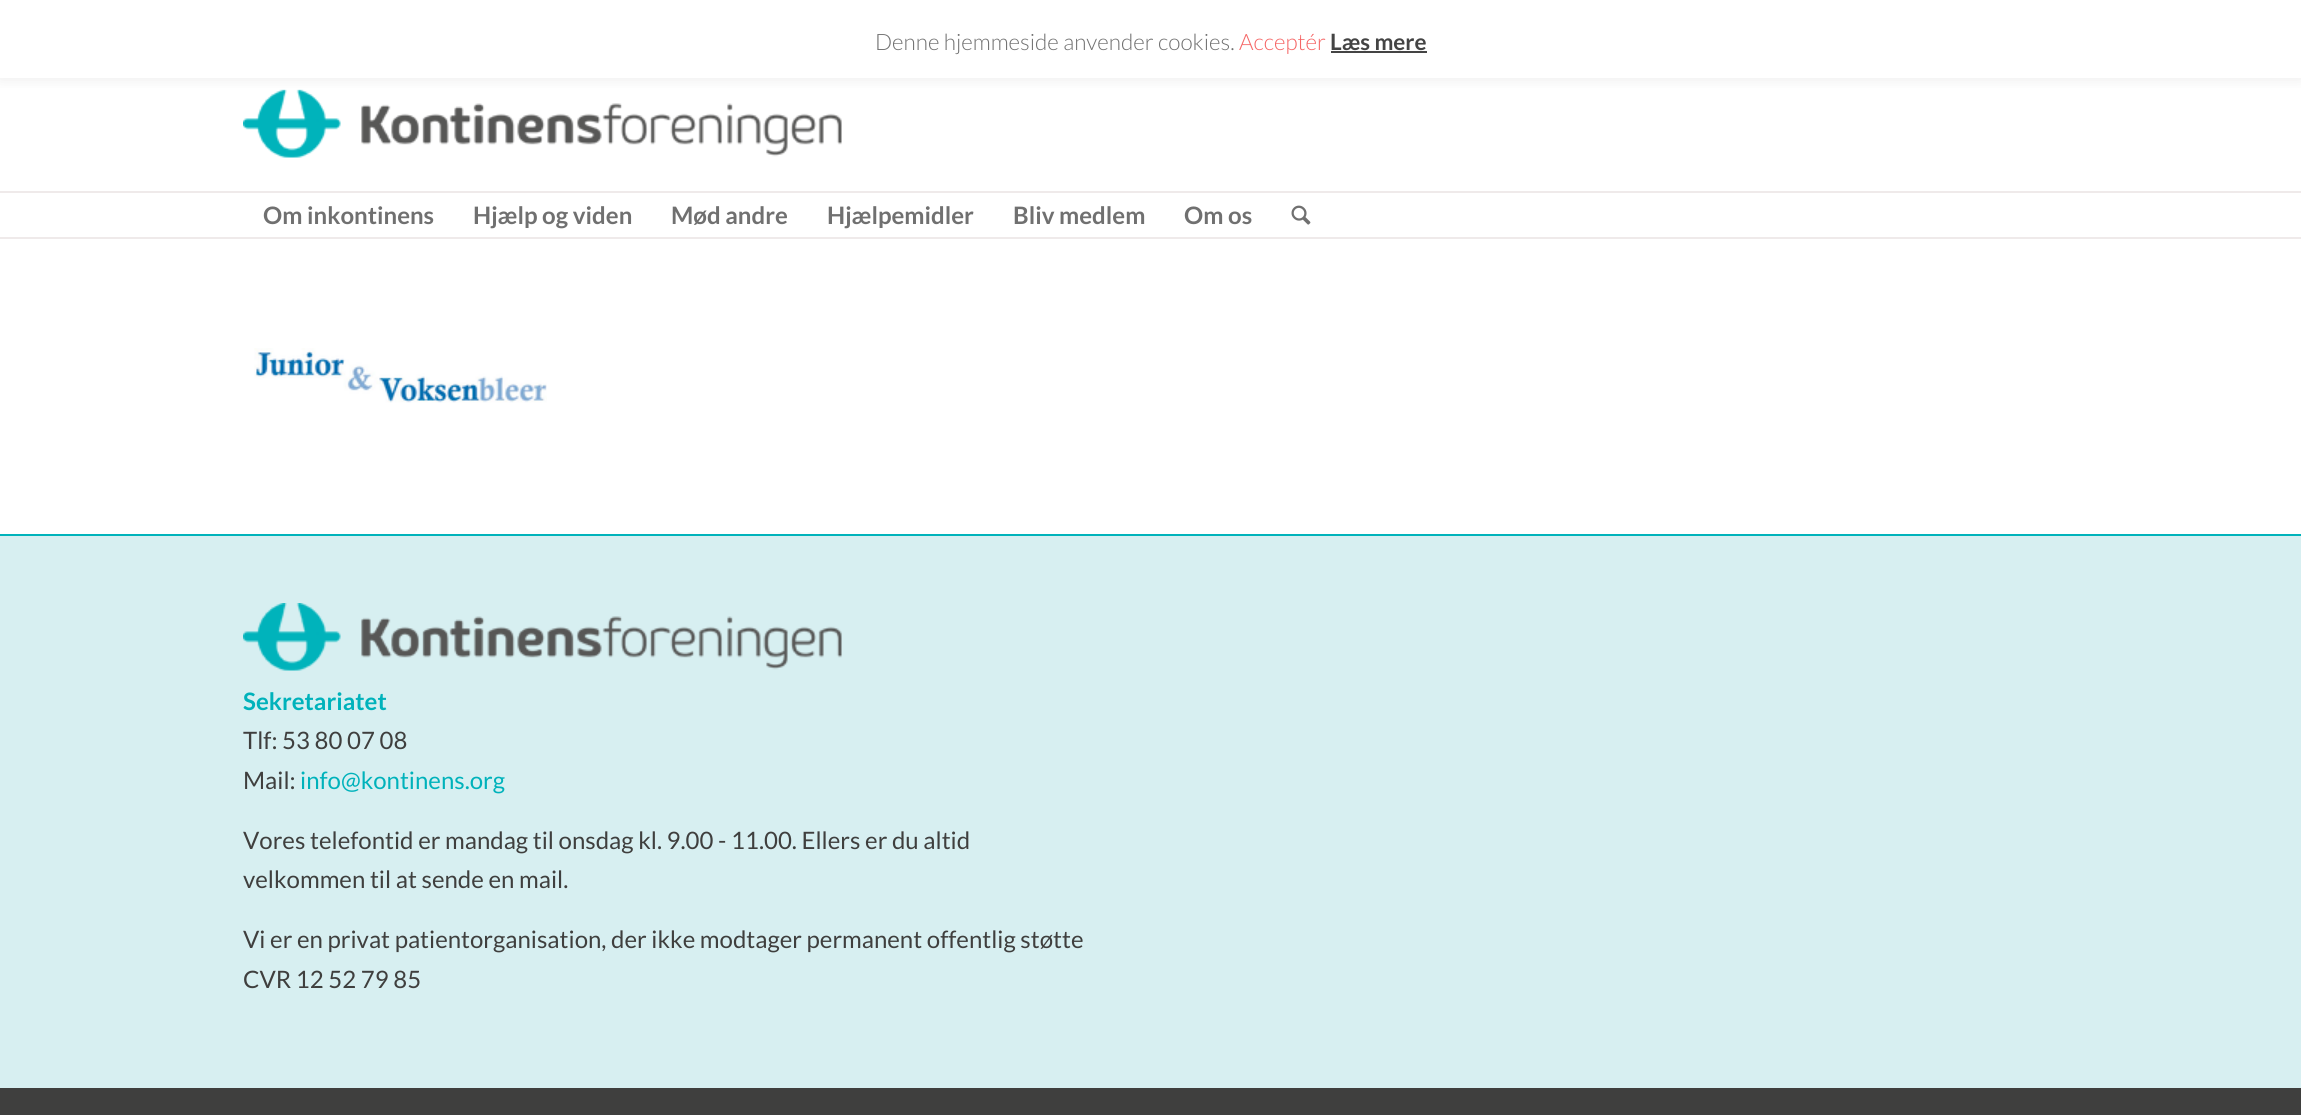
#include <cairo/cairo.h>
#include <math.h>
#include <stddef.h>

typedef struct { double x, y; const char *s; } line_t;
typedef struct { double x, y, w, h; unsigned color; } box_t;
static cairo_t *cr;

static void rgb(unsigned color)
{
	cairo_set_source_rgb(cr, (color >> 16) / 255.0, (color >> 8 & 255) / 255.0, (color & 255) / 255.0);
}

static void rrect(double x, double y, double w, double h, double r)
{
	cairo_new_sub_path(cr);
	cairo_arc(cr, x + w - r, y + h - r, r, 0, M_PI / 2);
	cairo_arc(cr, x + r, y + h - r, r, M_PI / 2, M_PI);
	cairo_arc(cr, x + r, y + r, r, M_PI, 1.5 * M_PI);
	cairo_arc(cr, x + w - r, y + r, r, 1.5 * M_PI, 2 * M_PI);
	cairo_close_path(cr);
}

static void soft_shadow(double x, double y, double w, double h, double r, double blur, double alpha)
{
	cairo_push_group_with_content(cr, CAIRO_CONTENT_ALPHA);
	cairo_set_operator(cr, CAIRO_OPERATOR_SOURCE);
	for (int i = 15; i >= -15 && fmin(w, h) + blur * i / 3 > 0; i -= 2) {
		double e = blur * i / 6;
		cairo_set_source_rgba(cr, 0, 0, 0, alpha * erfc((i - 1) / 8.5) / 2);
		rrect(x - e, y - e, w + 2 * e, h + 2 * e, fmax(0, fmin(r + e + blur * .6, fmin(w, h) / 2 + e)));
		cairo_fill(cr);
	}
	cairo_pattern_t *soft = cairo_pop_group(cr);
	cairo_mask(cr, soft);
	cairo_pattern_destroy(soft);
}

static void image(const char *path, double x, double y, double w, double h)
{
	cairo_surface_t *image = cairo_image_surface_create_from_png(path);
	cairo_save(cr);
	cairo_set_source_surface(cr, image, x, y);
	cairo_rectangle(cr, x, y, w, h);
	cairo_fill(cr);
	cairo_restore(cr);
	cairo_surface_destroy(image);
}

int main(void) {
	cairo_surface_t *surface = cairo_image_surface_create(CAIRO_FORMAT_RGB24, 2301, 1115);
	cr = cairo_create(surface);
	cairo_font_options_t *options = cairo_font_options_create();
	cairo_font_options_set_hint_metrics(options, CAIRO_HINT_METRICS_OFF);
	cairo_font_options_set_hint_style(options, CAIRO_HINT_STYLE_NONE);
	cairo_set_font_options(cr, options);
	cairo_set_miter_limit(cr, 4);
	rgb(0xffffff);
	cairo_paint(cr);
	image("img/1.png", 243, 89, 599, 69);
	cairo_save(cr);
	cairo_rectangle(cr, 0, 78, 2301, 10);
	cairo_clip(cr);
	rgb(0xacabab);
	soft_shadow(0, -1, 2301, 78, 0, 7.5, 0.3);
	cairo_restore(cr);
	{
		static const box_t items[] = {
			{1331, 51, 96, 2, 0x444444},
			{0, 191, 2301, 2, 0xefeaea},
			{0, 237, 2301, 2, 0xefeaea},
		};
		for (size_t i = 0; i < sizeof items / sizeof *items; i++) {
			rgb(items[i].color);
			cairo_rectangle(cr, items[i].x, items[i].y, items[i].w, items[i].h);
			cairo_fill(cr);
		}
	}
	image("img/2.png", 1291, 205, 20, 20);
	image("img/3.png", 254, 348, 293, 55);
	rgb(0xd7eff1);
	cairo_rectangle(cr, 0, 536, 2301, 552);
	cairo_fill(cr);
	rgb(0x00b3bb);
	cairo_rectangle(cr, 0, 534, 2301, 2);
	cairo_fill(cr);
	image("img/4.png", 243, 603, 599, 68);
	rgb(0x3f3f3e);
	cairo_rectangle(cr, 0, 1088, 2301, 27);
	cairo_fill(cr);
	cairo_select_font_face(cr, "Lato Light", CAIRO_FONT_SLANT_NORMAL, CAIRO_FONT_WEIGHT_NORMAL);
	cairo_set_font_size(cr, 22.5);
	rgb(0x707070);
	cairo_move_to(cr, 875, 50);
	cairo_show_text(cr, "Denne hjemmeside anvender cookies.");
	rgb(0xf56565);
	cairo_move_to(cr, 1239, 50);
	cairo_show_text(cr, "Acceptér");
	cairo_select_font_face(cr, "Lato", CAIRO_FONT_SLANT_NORMAL, CAIRO_FONT_WEIGHT_BOLD);
	rgb(0x444444);
	cairo_move_to(cr, 1330, 50);
	cairo_show_text(cr, "Læs mere");
	cairo_set_font_size(cr, 24);
	rgb(0x707070);
	{
		static const line_t items[] = {
			{263, 224, "Om inkontinens"},
			{473, 224, "Hjælp og viden"},
			{671, 224, "Mød andre"},
			{827, 224, "Hjælpemidler"},
			{1013, 224, "Bliv medlem"},
			{1184, 224, "Om os"},
		};
		for (size_t i = 0; i < sizeof items / sizeof *items; i++) {
			cairo_move_to(cr, items[i].x, items[i].y);
			cairo_show_text(cr, items[i].s);
		}
	}
	rgb(0x00b2bb);
	cairo_move_to(cr, 243, 710);
	cairo_show_text(cr, "Sekretariatet");
	cairo_select_font_face(cr, "Lato", CAIRO_FONT_SLANT_NORMAL, CAIRO_FONT_WEIGHT_NORMAL);
	rgb(0x3f3f3e);
	cairo_move_to(cr, 243, 749);
	cairo_show_text(cr, "Tlf: 53 80 07 08");
	cairo_move_to(cr, 243, 789);
	cairo_show_text(cr, "Mail:");
	rgb(0x00b2bb);
	cairo_move_to(cr, 300, 789);
	cairo_show_text(cr, "info@kontinens.org");
	rgb(0x3f3f3e);
	{
		static const line_t items[] = {
			{243, 849, "Vores telefontid er mandag til onsdag kl. 9.00 - 11.00. Ellers er du altid"},
			{243, 888, "velkommen til at sende en mail."},
			{243, 948, "Vi er en privat patientorganisation, der ikke modtager permanent offentlig støtte"},
			{243, 988, "CVR 12 52 79 85"},
		};
		for (size_t i = 0; i < sizeof items / sizeof *items; i++) {
			cairo_move_to(cr, items[i].x, items[i].y);
			cairo_show_text(cr, items[i].s);
		}
	}
	cairo_surface_write_to_png(surface, "page.png");
	cairo_font_options_destroy(options);
	cairo_destroy(cr);
	cairo_surface_destroy(surface);
	return 0;
}
